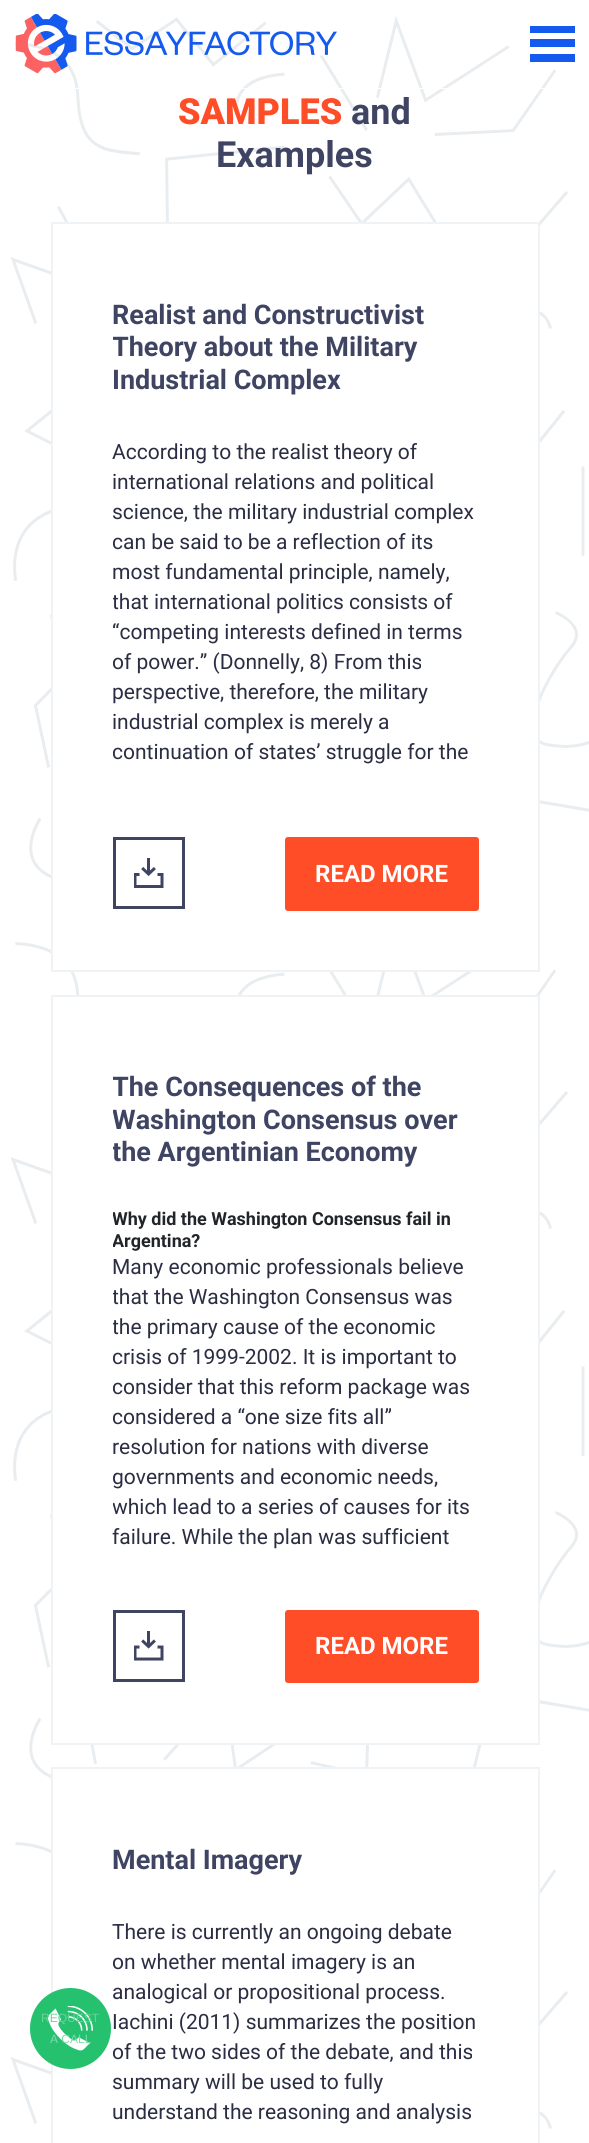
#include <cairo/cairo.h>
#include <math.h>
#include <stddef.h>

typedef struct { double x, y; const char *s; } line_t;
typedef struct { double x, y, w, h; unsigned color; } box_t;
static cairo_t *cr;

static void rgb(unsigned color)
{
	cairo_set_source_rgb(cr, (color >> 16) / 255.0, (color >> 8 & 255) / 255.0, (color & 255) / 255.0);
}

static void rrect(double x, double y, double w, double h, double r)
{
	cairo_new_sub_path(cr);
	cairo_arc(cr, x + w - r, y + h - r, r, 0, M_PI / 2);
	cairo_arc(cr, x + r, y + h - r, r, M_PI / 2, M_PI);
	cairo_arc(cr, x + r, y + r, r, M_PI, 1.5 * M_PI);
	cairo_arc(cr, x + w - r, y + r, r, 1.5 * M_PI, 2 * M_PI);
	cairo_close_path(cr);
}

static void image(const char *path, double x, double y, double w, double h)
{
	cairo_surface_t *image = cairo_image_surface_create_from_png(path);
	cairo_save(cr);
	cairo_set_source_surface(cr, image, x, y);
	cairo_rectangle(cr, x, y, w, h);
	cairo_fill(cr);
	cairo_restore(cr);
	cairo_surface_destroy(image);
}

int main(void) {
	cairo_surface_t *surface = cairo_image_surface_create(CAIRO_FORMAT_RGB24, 589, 2143);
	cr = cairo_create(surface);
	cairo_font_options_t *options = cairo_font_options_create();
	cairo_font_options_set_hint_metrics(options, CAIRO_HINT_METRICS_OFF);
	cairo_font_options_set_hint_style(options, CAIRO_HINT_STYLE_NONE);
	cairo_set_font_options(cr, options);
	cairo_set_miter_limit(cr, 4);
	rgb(0xffffff);
	cairo_paint(cr);
	image("img/1.png", 10, 89, 579, 2040);
	rgb(0xffffff);
	cairo_rectangle(cr, 53, 1769, 485, 360);
	cairo_fill(cr);
	cairo_rectangle(cr, 52, 1768, 487, 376);
	rgb(0xf0f3f5);
	cairo_stroke(cr);
	rgb(0x25c16f);
	cairo_arc(cr, 70.5, 2028.5, 40.5, 0, 2 * M_PI);
	cairo_fill(cr);
	image("img/2.png", 48, 2006, 45, 45);
	image("img/3.png", 15, 16, 541, 72);
	image("img/4.png", 15, 14, 322, 60);
	{
		static const box_t items[] = {
			{530, 54, 45, 8, 0x155aee},
			{530, 39, 45, 8, 0x155aee},
			{530, 26, 45, 7, 0x155aee},
		};
		for (size_t i = 0; i < sizeof items / sizeof *items; i++) {
			rgb(items[i].color);
			cairo_rectangle(cr, items[i].x, items[i].y, items[i].w, items[i].h);
			cairo_fill(cr);
		}
	}
	rgb(0xffffff);
	cairo_rectangle(cr, 52, 223, 487, 748);
	cairo_fill_preserve(cr);
	rgb(0xf0f3f5);
	cairo_stroke(cr);
	image("img/5.png", 134, 858, 30, 30);
	cairo_rectangle(cr, 114.5, 838.5, 69, 69);
	rgb(0x3f4462);
	cairo_set_line_width(cr, 3);
	cairo_stroke(cr);
	rgb(0xff4d28);
	rrect(285, 837, 194, 74, 3);
	cairo_fill(cr);
	rgb(0xffffff);
	cairo_rectangle(cr, 52, 996, 487, 748);
	cairo_fill_preserve(cr);
	rgb(0xf0f3f5);
	cairo_set_line_width(cr, 2);
	cairo_stroke(cr);
	image("img/6.png", 134, 1631, 30, 30);
	cairo_rectangle(cr, 114.5, 1611.5, 69, 69);
	rgb(0x3f4462);
	cairo_set_line_width(cr, 3);
	cairo_stroke(cr);
	rgb(0xff4d28);
	rrect(285, 1610, 194, 73, 3);
	cairo_fill(cr);
	cairo_select_font_face(cr, "Liberation Sans", CAIRO_FONT_SLANT_NORMAL, CAIRO_FONT_WEIGHT_NORMAL);
	cairo_set_font_size(cr, 12);
	rgb(0x67d49a);
	cairo_move_to(cr, 41, 2022);
	cairo_show_text(cr, "REQUEST");
	rgb(0x7fdbab);
	cairo_move_to(cr, 50, 2043);
	cairo_show_text(cr, "A CALL");
	cairo_select_font_face(cr, "Roboto Black", CAIRO_FONT_SLANT_NORMAL, CAIRO_FONT_WEIGHT_NORMAL);
	cairo_set_font_size(cr, 36);
	rgb(0xff4d28);
	cairo_move_to(cr, 178, 124);
	cairo_show_text(cr, "SAMPLES");
	cairo_select_font_face(cr, "Roboto", CAIRO_FONT_SLANT_NORMAL, CAIRO_FONT_WEIGHT_BOLD);
	rgb(0x3f4462);
	cairo_move_to(cr, 351, 124);
	cairo_show_text(cr, "and");
	cairo_move_to(cr, 216, 167);
	cairo_show_text(cr, "Examples");
	cairo_set_font_size(cr, 27);
	cairo_move_to(cr, 112, 324);
	cairo_show_text(cr, "Realist and Constructivist");
	cairo_save(cr);
	cairo_rectangle(cr, 113, 299, 366, 484);
	cairo_clip(cr);
	cairo_move_to(cr, 112, 356);
	cairo_show_text(cr, "Theory about the Military");
	cairo_restore(cr);
	cairo_move_to(cr, 112, 389);
	cairo_show_text(cr, "Industrial Complex");
	cairo_select_font_face(cr, "Roboto", CAIRO_FONT_SLANT_NORMAL, CAIRO_FONT_WEIGHT_NORMAL);
	cairo_set_font_size(cr, 21);
	rgb(0x2b2e43);
	{
		static const line_t items[] = {
			{112, 459, "According to the realist theory of"},
			{112, 489, "international relations and political"},
			{112, 519, "science, the military industrial complex"},
		};
		for (size_t i = 0; i < sizeof items / sizeof *items; i++) {
			cairo_move_to(cr, items[i].x, items[i].y);
			cairo_show_text(cr, items[i].s);
		}
	}
	cairo_save(cr);
	cairo_rectangle(cr, 113, 299, 366, 484);
	cairo_clip(cr);
	cairo_move_to(cr, 112, 549);
	cairo_show_text(cr, "can be said to be a reflection of its");
	cairo_restore(cr);
	cairo_move_to(cr, 112, 579);
	cairo_show_text(cr, "most fundamental principle, namely,");
	cairo_save(cr);
	cairo_rectangle(cr, 113, 299, 366, 484);
	cairo_clip(cr);
	cairo_move_to(cr, 112, 609);
	cairo_show_text(cr, "that international politics consists of");
	cairo_restore(cr);
	cairo_move_to(cr, 112, 639);
	cairo_show_text(cr, "“competing interests defined in terms");
	cairo_save(cr);
	cairo_rectangle(cr, 113, 299, 366, 484);
	cairo_clip(cr);
	cairo_move_to(cr, 112, 669);
	cairo_show_text(cr, "of power.” (Donnelly, 8) From this");
	cairo_restore(cr);
	cairo_move_to(cr, 112, 699);
	cairo_show_text(cr, "perspective, therefore, the military");
	cairo_move_to(cr, 112, 729);
	cairo_show_text(cr, "industrial complex is merely a");
	cairo_save(cr);
	cairo_rectangle(cr, 113, 299, 366, 484);
	cairo_clip(cr);
	cairo_move_to(cr, 112, 759);
	cairo_show_text(cr, "continuation of states’ struggle for the");
	cairo_restore(cr);
	cairo_select_font_face(cr, "Roboto", CAIRO_FONT_SLANT_NORMAL, CAIRO_FONT_WEIGHT_BOLD);
	cairo_set_font_size(cr, 24);
	rgb(0xffffff);
	cairo_move_to(cr, 315, 882);
	cairo_show_text(cr, "READ MORE");
	cairo_save(cr);
	cairo_rectangle(cr, 113, 1071, 366, 485);
	cairo_clip(cr);
	cairo_set_font_size(cr, 27);
	rgb(0x3f4462);
	{
		static const line_t items[] = {
			{112, 1096, "The Consequences of the"},
			{112, 1129, "Washington Consensus over"},
			{112, 1161, "the Argentinian Economy"},
		};
		for (size_t i = 0; i < sizeof items / sizeof *items; i++) {
			cairo_move_to(cr, items[i].x, items[i].y);
			cairo_show_text(cr, items[i].s);
		}
	}
	cairo_set_font_size(cr, 18);
	rgb(0x212529);
	cairo_move_to(cr, 112, 1225);
	cairo_show_text(cr, "Why did the Washington Consensus fail in");
	cairo_move_to(cr, 112, 1247);
	cairo_show_text(cr, "Argentina?");
	cairo_restore(cr);
	cairo_select_font_face(cr, "Roboto", CAIRO_FONT_SLANT_NORMAL, CAIRO_FONT_WEIGHT_NORMAL);
	cairo_set_font_size(cr, 21);
	rgb(0x2b2e43);
	cairo_move_to(cr, 112, 1274);
	cairo_show_text(cr, "Many economic professionals believe");
	cairo_save(cr);
	cairo_rectangle(cr, 113, 1071, 366, 485);
	cairo_clip(cr);
	{
		static const line_t items[] = {
			{112, 1304, "that the Washington Consensus was"},
			{112, 1334, "the primary cause of the economic"},
			{112, 1364, "crisis of 1999-2002. It is important to"},
			{112, 1394, "consider that this reform package was"},
			{112, 1424, "considered a “one size fits all”"},
		};
		for (size_t i = 0; i < sizeof items / sizeof *items; i++) {
			cairo_move_to(cr, items[i].x, items[i].y);
			cairo_show_text(cr, items[i].s);
		}
	}
	cairo_restore(cr);
	cairo_move_to(cr, 112, 1454);
	cairo_show_text(cr, "resolution for nations with diverse");
	cairo_save(cr);
	cairo_rectangle(cr, 113, 1071, 366, 485);
	cairo_clip(cr);
	cairo_move_to(cr, 112, 1484);
	cairo_show_text(cr, "governments and economic needs,");
	cairo_move_to(cr, 112, 1514);
	cairo_show_text(cr, "which lead to a series of causes for its");
	cairo_restore(cr);
	cairo_move_to(cr, 112, 1544);
	cairo_show_text(cr, "failure. While the plan was sufficient");
	cairo_select_font_face(cr, "Roboto", CAIRO_FONT_SLANT_NORMAL, CAIRO_FONT_WEIGHT_BOLD);
	cairo_set_font_size(cr, 24);
	rgb(0xffffff);
	cairo_move_to(cr, 315, 1654);
	cairo_show_text(cr, "READ MORE");
	cairo_set_font_size(cr, 27);
	rgb(0x3f4462);
	cairo_move_to(cr, 112, 1869);
	cairo_show_text(cr, "Mental Imagery");
	cairo_select_font_face(cr, "Roboto", CAIRO_FONT_SLANT_NORMAL, CAIRO_FONT_WEIGHT_NORMAL);
	cairo_set_font_size(cr, 21);
	rgb(0x2b2e43);
	cairo_move_to(cr, 112, 1939);
	cairo_show_text(cr, "There is currently an ongoing debate");
	cairo_save(cr);
	cairo_rectangle(cr, 113, 1844, 366, 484);
	cairo_clip(cr);
	cairo_move_to(cr, 112, 1969);
	cairo_show_text(cr, "on whether mental imagery is an");
	cairo_restore(cr);
	cairo_move_to(cr, 112, 1999);
	cairo_show_text(cr, "analogical or propositional process.");
	cairo_move_to(cr, 112, 2029);
	cairo_show_text(cr, "Iachini (2011) summarizes the position");
	cairo_save(cr);
	cairo_rectangle(cr, 113, 1844, 366, 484);
	cairo_clip(cr);
	cairo_move_to(cr, 112, 2059);
	cairo_show_text(cr, "of the two sides of the debate, and this");
	cairo_restore(cr);
	cairo_move_to(cr, 112, 2089);
	cairo_show_text(cr, "summary will be used to fully");
	cairo_move_to(cr, 112, 2119);
	cairo_show_text(cr, "understand the reasoning and analysis");
	cairo_surface_write_to_png(surface, "page.png");
	cairo_font_options_destroy(options);
	cairo_destroy(cr);
	cairo_surface_destroy(surface);
	return 0;
}
